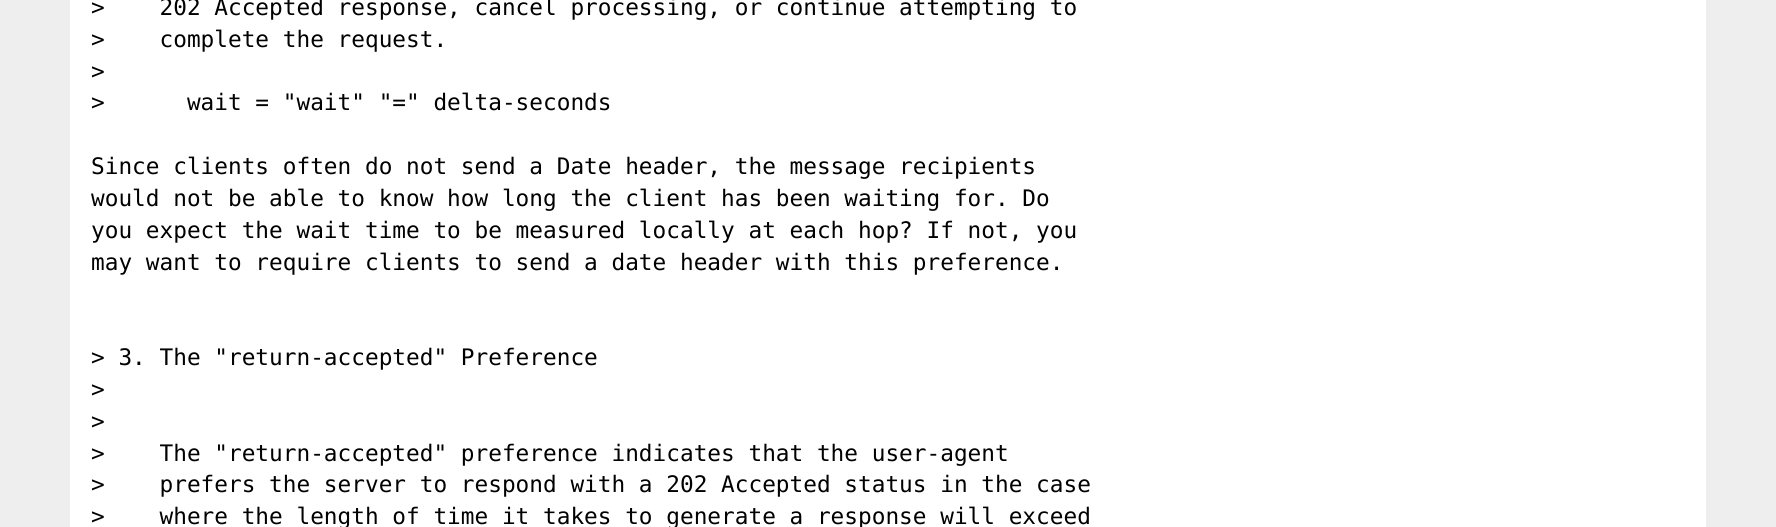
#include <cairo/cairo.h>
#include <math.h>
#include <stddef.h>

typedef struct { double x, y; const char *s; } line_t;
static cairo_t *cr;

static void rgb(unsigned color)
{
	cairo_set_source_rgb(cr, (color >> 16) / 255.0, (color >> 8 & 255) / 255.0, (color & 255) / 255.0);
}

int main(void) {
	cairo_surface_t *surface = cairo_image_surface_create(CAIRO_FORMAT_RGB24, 1776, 527);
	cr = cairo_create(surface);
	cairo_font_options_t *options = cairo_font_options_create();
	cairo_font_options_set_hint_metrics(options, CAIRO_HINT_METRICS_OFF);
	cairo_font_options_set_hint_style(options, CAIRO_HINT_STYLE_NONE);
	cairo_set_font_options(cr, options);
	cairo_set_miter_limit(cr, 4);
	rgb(0xeeeeee);
	cairo_paint(cr);
	rgb(0xffffff);
	cairo_rectangle(cr, 70, 0, 1636, 527);
	cairo_fill(cr);
	cairo_select_font_face(cr, "DejaVu Sans Mono", CAIRO_FONT_SLANT_NORMAL, CAIRO_FONT_WEIGHT_NORMAL);
	cairo_set_font_size(cr, 22.75);
	rgb(0x000000);
	{
		static const line_t items[] = {
			{91, 15, ">    202 Accepted response, cancel processing, or continue attempting to"},
			{91, 47, ">    complete the request."},
			{91, 79, ">"},
			{91, 110, ">      wait = \"wait\" \"=\" delta-seconds"},
			{91, 174, "Since clients often do not send a Date header, the message recipients"},
			{91, 206, "would not be able to know how long the client has been waiting for. Do"},
			{91, 238, "you expect the wait time to be measured locally at each hop? If not, you"},
			{91, 270, "may want to require clients to send a date header with this preference."},
			{91, 365, "> 3. The \"return-accepted\" Preference"},
			{91, 397, ">"},
			{91, 429, ">"},
			{91, 461, ">    The \"return-accepted\" preference indicates that the user-agent"},
			{91, 492, ">    prefers the server to respond with a 202 Accepted status in the case"},
			{91, 524, ">    where the length of time it takes to generate a response will exceed"},
		};
		for (size_t i = 0; i < sizeof items / sizeof *items; i++) {
			cairo_move_to(cr, items[i].x, items[i].y);
			cairo_show_text(cr, items[i].s);
		}
	}
	cairo_surface_write_to_png(surface, "page.png");
	cairo_font_options_destroy(options);
	cairo_destroy(cr);
	cairo_surface_destroy(surface);
	return 0;
}
